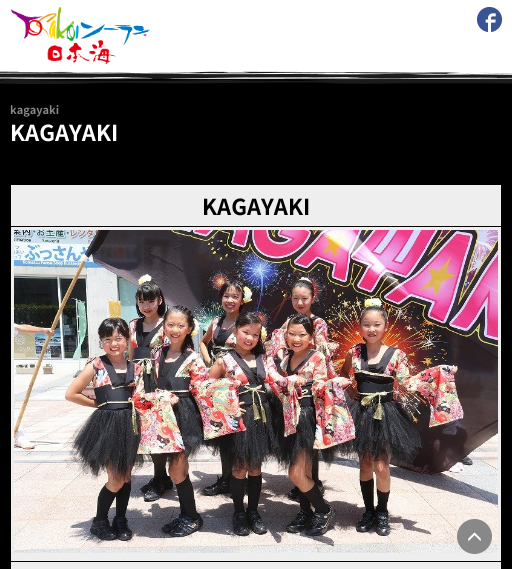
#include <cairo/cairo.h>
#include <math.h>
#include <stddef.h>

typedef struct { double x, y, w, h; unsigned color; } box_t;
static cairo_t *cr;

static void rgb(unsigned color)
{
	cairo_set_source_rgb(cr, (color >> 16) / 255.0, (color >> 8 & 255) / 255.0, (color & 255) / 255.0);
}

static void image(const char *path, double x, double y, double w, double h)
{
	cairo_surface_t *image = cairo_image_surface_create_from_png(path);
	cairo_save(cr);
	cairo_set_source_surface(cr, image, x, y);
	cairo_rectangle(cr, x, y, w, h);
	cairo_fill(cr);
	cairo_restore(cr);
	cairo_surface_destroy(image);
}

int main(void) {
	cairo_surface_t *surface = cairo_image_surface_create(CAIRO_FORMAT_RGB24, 512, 569);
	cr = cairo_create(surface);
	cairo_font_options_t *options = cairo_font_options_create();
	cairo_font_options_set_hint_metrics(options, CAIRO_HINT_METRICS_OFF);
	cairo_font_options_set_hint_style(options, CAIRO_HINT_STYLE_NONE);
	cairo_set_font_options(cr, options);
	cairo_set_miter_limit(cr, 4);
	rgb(0xffffff);
	cairo_paint(cr);
	image("img/1.png", 10, 7, 140, 57);
	image("img/2.png", 477, 7, 25, 25);
	image("img/3.png", 0, 71, 512, 30);
	{
		static const box_t items[] = {
			{0, 101, 512, 468, 0x000000},
			{11, 562, 491, 7, 0xeeeeee},
			{501, 562, 1, 7, 0x000000},
			{11, 185, 490, 41, 0xeeeeee},
			{11, 227, 490, 334, 0xeeeeee},
		};
		for (size_t i = 0; i < sizeof items / sizeof *items; i++) {
			rgb(items[i].color);
			cairo_rectangle(cr, items[i].x, items[i].y, items[i].w, items[i].h);
			cairo_fill(cr);
		}
	}
	image("img/4.png", 14, 230, 484, 323);
	rgb(0x888888);
	cairo_arc(cr, 474.5, 536.5, 16.5, 0, 2 * M_PI);
	cairo_fill_preserve(cr);
	cairo_stroke(cr);
	image("img/5.png", 468, 532, 13, 9);
	cairo_select_font_face(cr, "Noto Sans JP", CAIRO_FONT_SLANT_NORMAL, CAIRO_FONT_WEIGHT_BOLD);
	cairo_set_font_size(cr, 11);
	cairo_move_to(cr, 10, 114);
	cairo_show_text(cr, "kagayaki");
	cairo_set_font_size(cr, 22);
	rgb(0xffffff);
	cairo_move_to(cr, 10, 141);
	cairo_show_text(cr, "KAGAYAKI");
	rgb(0x000000);
	cairo_move_to(cr, 202, 215);
	cairo_show_text(cr, "KAGAYAKI");
	cairo_surface_write_to_png(surface, "page.png");
	cairo_font_options_destroy(options);
	cairo_destroy(cr);
	cairo_surface_destroy(surface);
	return 0;
}
